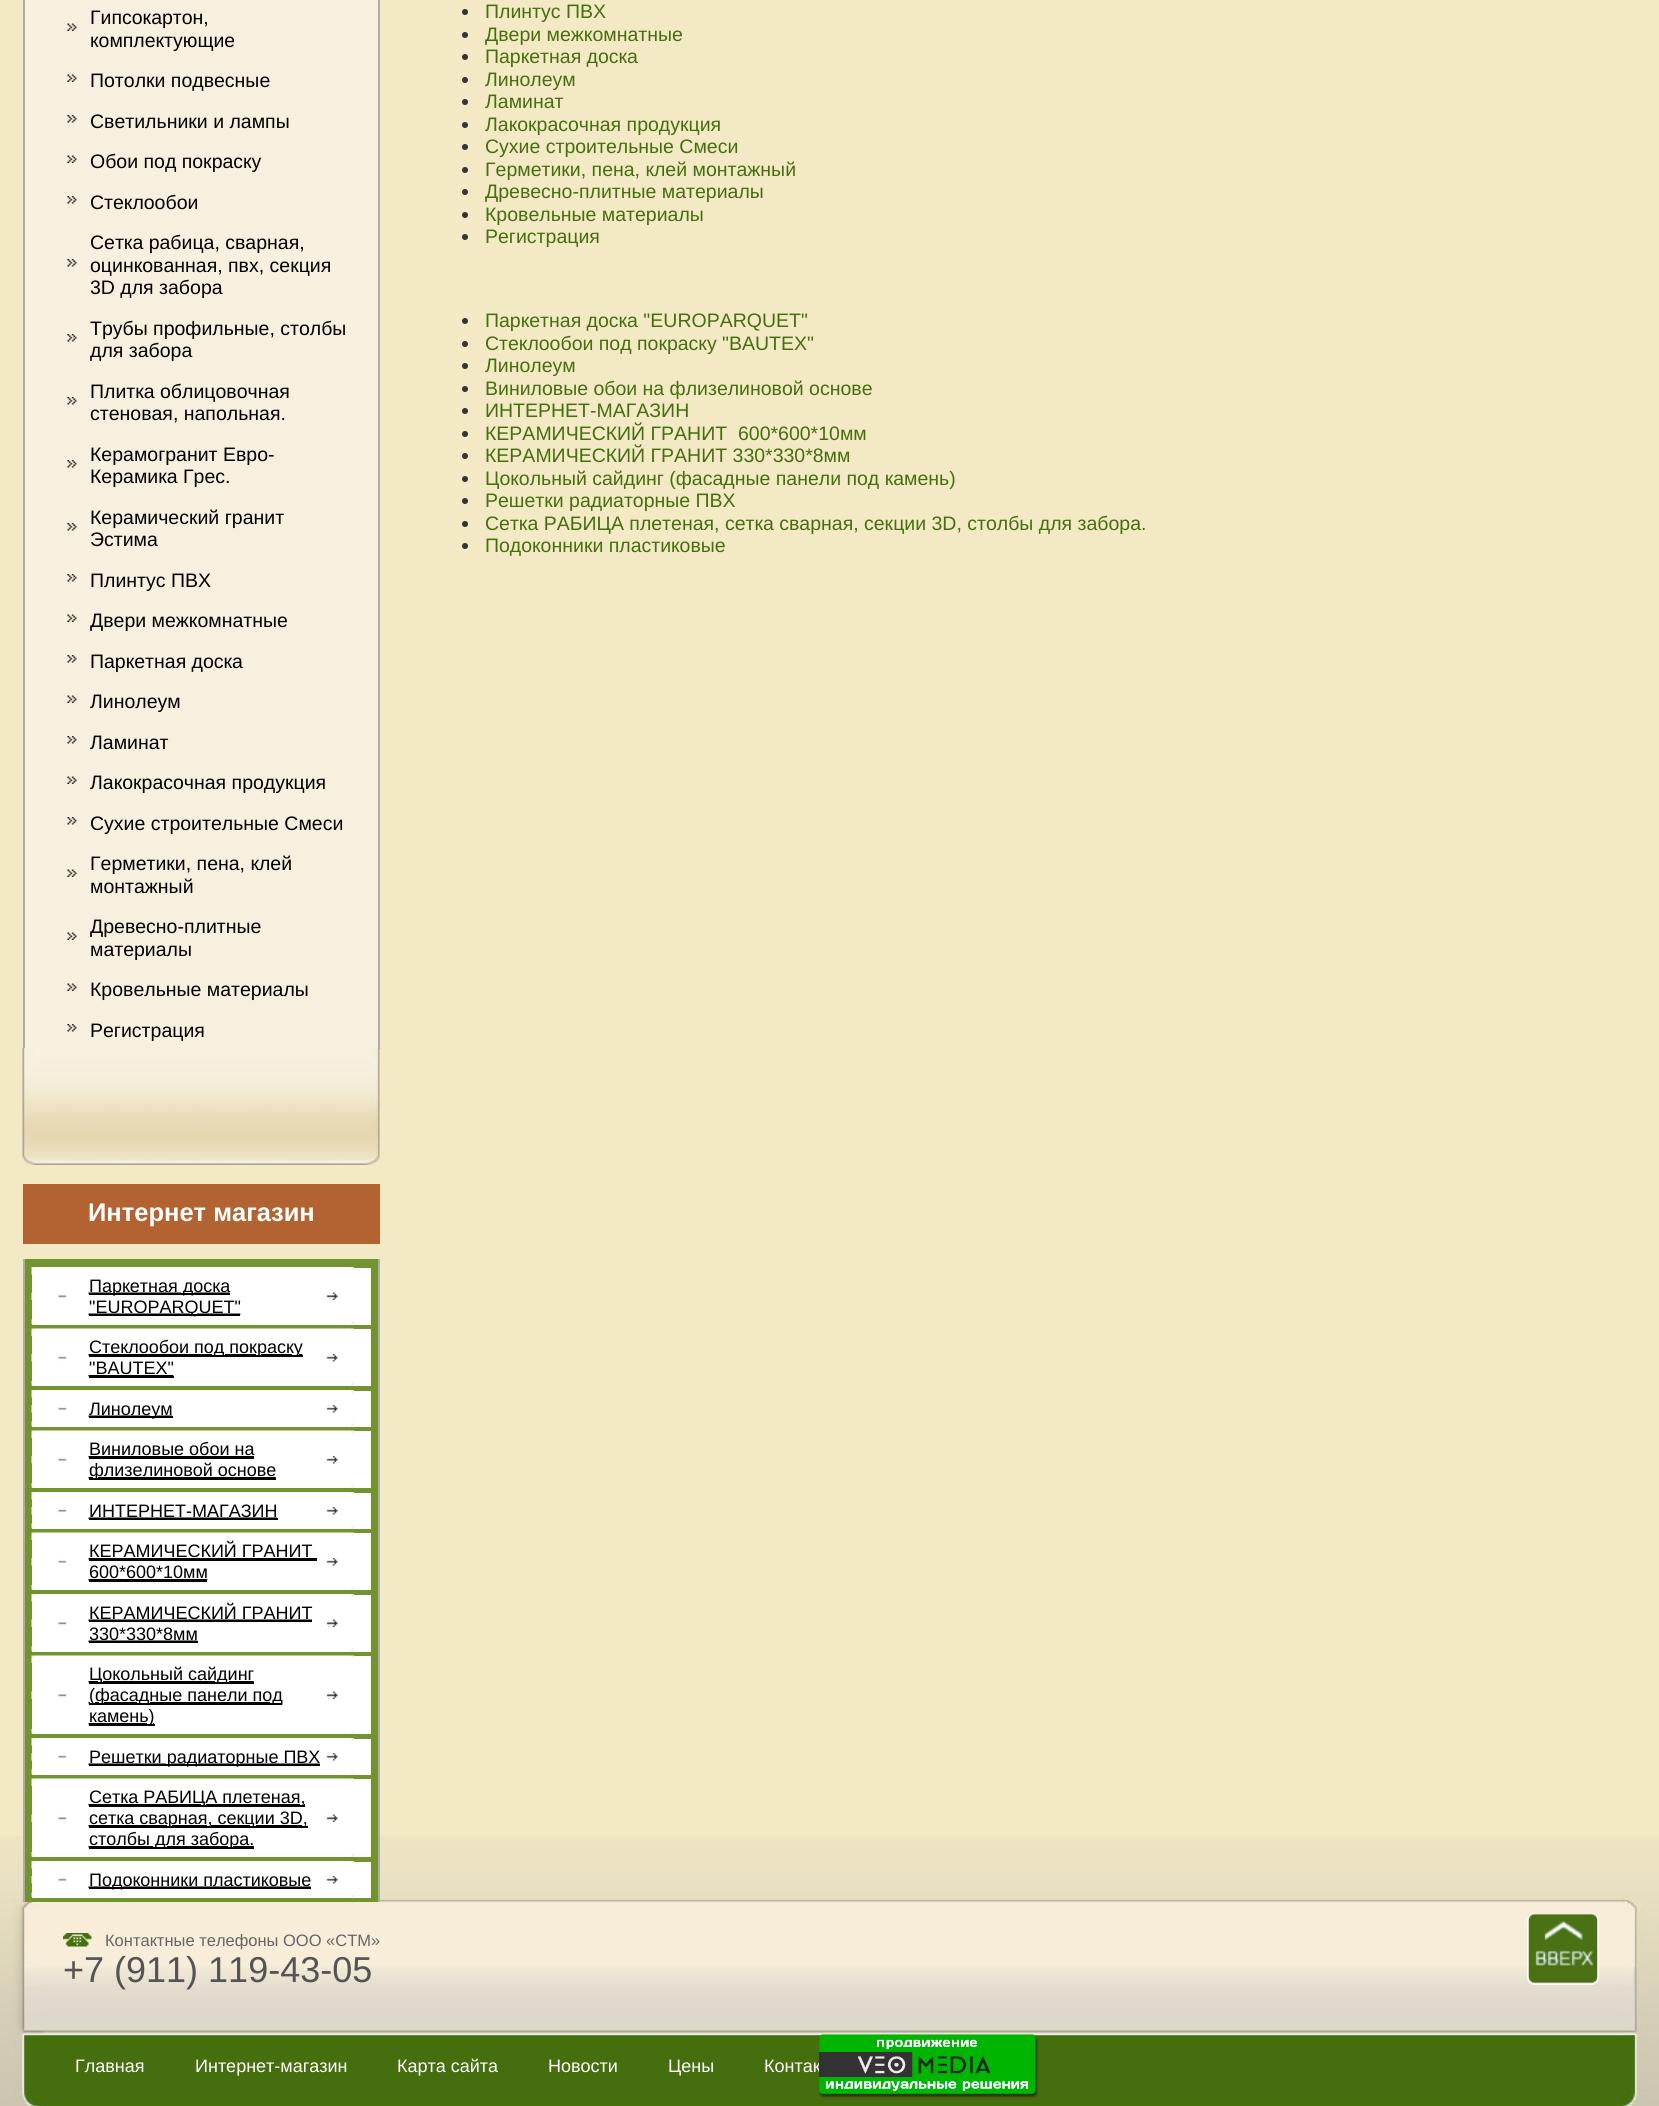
#include <cairo/cairo.h>
#include <math.h>
#include <stddef.h>

typedef struct { double x, y; const char *s; } line_t;
typedef struct { double x, y, w, h; unsigned color; } box_t;
static cairo_t *cr;

static void rgb(unsigned color)
{
	cairo_set_source_rgb(cr, (color >> 16) / 255.0, (color >> 8 & 255) / 255.0, (color & 255) / 255.0);
}

static void rrect(double x, double y, double w, double h, double r)
{
	cairo_new_sub_path(cr);
	cairo_arc(cr, x + w - r, y + h - r, r, 0, M_PI / 2);
	cairo_arc(cr, x + r, y + h - r, r, M_PI / 2, M_PI);
	cairo_arc(cr, x + r, y + r, r, M_PI, 1.5 * M_PI);
	cairo_arc(cr, x + w - r, y + r, r, 1.5 * M_PI, 2 * M_PI);
	cairo_close_path(cr);
}

static void image(const char *path, double x, double y, double w, double h)
{
	cairo_surface_t *image = cairo_image_surface_create_from_png(path);
	cairo_save(cr);
	cairo_set_source_surface(cr, image, x, y);
	cairo_rectangle(cr, x, y, w, h);
	cairo_fill(cr);
	cairo_restore(cr);
	cairo_surface_destroy(image);
}

int main(void) {
	cairo_surface_t *surface = cairo_image_surface_create(CAIRO_FORMAT_RGB24, 1659, 2106);
	cr = cairo_create(surface);
	cairo_font_options_t *options = cairo_font_options_create();
	cairo_font_options_set_hint_metrics(options, CAIRO_HINT_METRICS_OFF);
	cairo_font_options_set_hint_style(options, CAIRO_HINT_STYLE_NONE);
	cairo_set_font_options(cr, options);
	cairo_set_miter_limit(cr, 4);
	rgb(0xf3e9c5);
	cairo_paint(cr);
	{
		static const box_t items[] = {
			{25, 0, 353, 1048, 0xf8f0df},
			{378, 0, 2, 1049, 0xacacac},
			{23, 0, 2, 1049, 0xacacac},
		};
		for (size_t i = 0; i < sizeof items / sizeof *items; i++) {
			rgb(items[i].color);
			cairo_rectangle(cr, items[i].x, items[i].y, items[i].w, items[i].h);
			cairo_fill(cr);
		}
	}
	image("img/1.png", 67, 23, 10, 8);
	image("img/1.png", 67, 74, 10, 8);
	image("img/2.png", 67, 115, 10, 8);
	image("img/1.png", 67, 155, 10, 8);
	image("img/2.png", 67, 196, 10, 8);
	image("img/2.png", 67, 259, 10, 8);
	image("img/2.png", 67, 334, 10, 8);
	image("img/2.png", 67, 397, 10, 8);
	image("img/2.png", 67, 460, 10, 8);
	image("img/2.png", 67, 523, 10, 8);
	image("img/2.png", 67, 574, 10, 8);
	image("img/1.png", 67, 614, 10, 8);
	image("img/2.png", 67, 655, 10, 8);
	image("img/1.png", 67, 695, 10, 8);
	image("img/2.png", 67, 736, 10, 8);
	image("img/1.png", 67, 776, 10, 8);
	image("img/2.png", 67, 817, 10, 8);
	image("img/1.png", 67, 869, 10, 8);
	image("img/1.png", 67, 932, 10, 8);
	image("img/1.png", 67, 983, 10, 8);
	image("img/2.png", 67, 1024, 10, 8);
	image("img/3.png", 22, 1048, 358, 117);
	rgb(0xb36231);
	cairo_rectangle(cr, 23, 1184, 357, 60);
	cairo_fill(cr);
	image("img/19.png", 0, 1836, 1659, 270);
	image("img/20.png", 0, 1897, 44, 209);
	{
		static const box_t items[] = {
			{25, 1259, 353, 643, 0x729430},
			{378, 1259, 2, 643, 0xacacac},
			{23, 1259, 2, 643, 0xacacac},
			{32, 1268, 339, 57, 0xffffff},
		};
		for (size_t i = 0; i < sizeof items / sizeof *items; i++) {
			rgb(items[i].color);
			cairo_rectangle(cr, items[i].x, items[i].y, items[i].w, items[i].h);
			cairo_fill(cr);
		}
	}
	image("img/4.png", 31, 1267, 323, 8);
	image("img/5.png", 31, 1319, 323, 5);
	image("img/6.png", 31, 1292, 307, 23);
	{
		static const box_t items[] = {
			{89, 1293, 141, 2, 0x000000},
			{89, 1314, 151, 2, 0x000000},
			{32, 1329, 339, 57, 0xffffff},
		};
		for (size_t i = 0; i < sizeof items / sizeof *items; i++) {
			rgb(items[i].color);
			cairo_rectangle(cr, items[i].x, items[i].y, items[i].w, items[i].h);
			cairo_fill(cr);
		}
	}
	image("img/7.png", 31, 1328, 323, 8);
	image("img/8.png", 31, 1381, 323, 5);
	image("img/9.png", 31, 1354, 307, 23);
	{
		static const box_t items[] = {
			{89, 1355, 214, 2, 0x000000},
			{89, 1376, 85, 2, 0x000000},
			{32, 1391, 339, 36, 0xffffff},
		};
		for (size_t i = 0; i < sizeof items / sizeof *items; i++) {
			rgb(items[i].color);
			cairo_rectangle(cr, items[i].x, items[i].y, items[i].w, items[i].h);
			cairo_fill(cr);
		}
	}
	image("img/4.png", 31, 1390, 323, 8);
	image("img/5.png", 31, 1421, 323, 5);
	image("img/10.png", 31, 1405, 307, 12);
	rgb(0x000000);
	cairo_rectangle(cr, 89, 1416, 84, 2);
	cairo_fill(cr);
	rgb(0xffffff);
	cairo_rectangle(cr, 32, 1431, 339, 57);
	cairo_fill(cr);
	image("img/7.png", 31, 1430, 323, 8);
	image("img/8.png", 31, 1483, 323, 5);
	image("img/11.png", 31, 1456, 307, 23);
	{
		static const box_t items[] = {
			{89, 1457, 165, 2, 0x000000},
			{89, 1478, 187, 2, 0x000000},
			{32, 1493, 339, 36, 0xffffff},
		};
		for (size_t i = 0; i < sizeof items / sizeof *items; i++) {
			rgb(items[i].color);
			cairo_rectangle(cr, items[i].x, items[i].y, items[i].w, items[i].h);
			cairo_fill(cr);
		}
	}
	image("img/4.png", 31, 1492, 323, 8);
	image("img/5.png", 31, 1523, 323, 5);
	image("img/12.png", 31, 1507, 307, 12);
	rgb(0x000000);
	cairo_rectangle(cr, 89, 1518, 189, 2);
	cairo_fill(cr);
	rgb(0xffffff);
	cairo_rectangle(cr, 32, 1533, 339, 57);
	cairo_fill(cr);
	image("img/7.png", 31, 1532, 323, 8);
	image("img/8.png", 31, 1585, 323, 5);
	image("img/13.png", 31, 1558, 307, 23);
	{
		static const box_t items[] = {
			{89, 1559, 228, 2, 0x000000},
			{89, 1580, 118, 2, 0x000000},
			{32, 1595, 339, 57, 0xffffff},
		};
		for (size_t i = 0; i < sizeof items / sizeof *items; i++) {
			rgb(items[i].color);
			cairo_rectangle(cr, items[i].x, items[i].y, items[i].w, items[i].h);
			cairo_fill(cr);
		}
	}
	image("img/4.png", 31, 1594, 323, 8);
	image("img/5.png", 31, 1646, 323, 5);
	image("img/14.png", 31, 1619, 307, 23);
	{
		static const box_t items[] = {
			{89, 1621, 223, 1, 0x000000},
			{89, 1641, 109, 2, 0x000000},
			{32, 1656, 339, 78, 0xffffff},
		};
		for (size_t i = 0; i < sizeof items / sizeof *items; i++) {
			rgb(items[i].color);
			cairo_rectangle(cr, items[i].x, items[i].y, items[i].w, items[i].h);
			cairo_fill(cr);
		}
	}
	image("img/7.png", 31, 1655, 323, 8);
	image("img/8.png", 31, 1729, 323, 5);
	image("img/15.png", 31, 1681, 307, 44);
	{
		static const box_t items[] = {
			{89, 1682, 165, 2, 0x000000},
			{89, 1703, 193, 2, 0x000000},
			{89, 1724, 66, 2, 0x000000},
			{32, 1739, 339, 36, 0xffffff},
		};
		for (size_t i = 0; i < sizeof items / sizeof *items; i++) {
			rgb(items[i].color);
			cairo_rectangle(cr, items[i].x, items[i].y, items[i].w, items[i].h);
			cairo_fill(cr);
		}
	}
	image("img/4.png", 31, 1738, 323, 8);
	image("img/5.png", 31, 1769, 323, 5);
	image("img/16.png", 31, 1753, 307, 12);
	rgb(0x000000);
	cairo_rectangle(cr, 89, 1764, 231, 2);
	cairo_fill(cr);
	rgb(0xffffff);
	cairo_rectangle(cr, 32, 1779, 339, 78);
	cairo_fill(cr);
	image("img/7.png", 31, 1778, 323, 8);
	image("img/8.png", 31, 1852, 323, 5);
	image("img/17.png", 31, 1804, 307, 44);
	{
		static const box_t items[] = {
			{89, 1805, 216, 2, 0x000000},
			{89, 1826, 219, 2, 0x000000},
			{89, 1847, 165, 2, 0x000000},
			{32, 1862, 339, 36, 0xffffff},
		};
		for (size_t i = 0; i < sizeof items / sizeof *items; i++) {
			rgb(items[i].color);
			cairo_rectangle(cr, items[i].x, items[i].y, items[i].w, items[i].h);
			cairo_fill(cr);
		}
	}
	image("img/4.png", 31, 1861, 323, 8);
	image("img/5.png", 31, 1892, 323, 5);
	image("img/18.png", 31, 1876, 307, 12);
	rgb(0x000000);
	cairo_rectangle(cr, 89, 1887, 222, 2);
	cairo_fill(cr);
	rgb(0x333333);
	cairo_arc(cr, 465, 12, 3, 0, 2 * M_PI);
	cairo_fill(cr);
	cairo_arc(cr, 465, 35, 3, 0, 2 * M_PI);
	cairo_fill(cr);
	cairo_arc(cr, 465, 57, 3, 0, 2 * M_PI);
	cairo_fill(cr);
	cairo_arc(cr, 465, 80, 3, 0, 2 * M_PI);
	cairo_fill(cr);
	cairo_arc(cr, 465, 102, 3, 0, 2 * M_PI);
	cairo_fill(cr);
	cairo_arc(cr, 465, 125, 3, 0, 2 * M_PI);
	cairo_fill(cr);
	cairo_arc(cr, 465, 147, 3, 0, 2 * M_PI);
	cairo_fill(cr);
	cairo_arc(cr, 465, 170, 3, 0, 2 * M_PI);
	cairo_fill(cr);
	cairo_arc(cr, 465, 192, 3, 0, 2 * M_PI);
	cairo_fill(cr);
	cairo_arc(cr, 465, 215, 3, 0, 2 * M_PI);
	cairo_fill(cr);
	cairo_arc(cr, 465, 237, 3, 0, 2 * M_PI);
	cairo_fill(cr);
	cairo_arc(cr, 465, 321, 3, 0, 2 * M_PI);
	cairo_fill(cr);
	cairo_arc(cr, 465, 344, 3, 0, 2 * M_PI);
	cairo_fill(cr);
	cairo_arc(cr, 465, 366, 3, 0, 2 * M_PI);
	cairo_fill(cr);
	cairo_arc(cr, 465, 389, 3, 0, 2 * M_PI);
	cairo_fill(cr);
	cairo_arc(cr, 465, 411, 3, 0, 2 * M_PI);
	cairo_fill(cr);
	cairo_arc(cr, 465, 434, 3, 0, 2 * M_PI);
	cairo_fill(cr);
	cairo_arc(cr, 465, 456, 3, 0, 2 * M_PI);
	cairo_fill(cr);
	cairo_arc(cr, 465, 479, 3, 0, 2 * M_PI);
	cairo_fill(cr);
	cairo_arc(cr, 465, 501, 3, 0, 2 * M_PI);
	cairo_fill(cr);
	cairo_arc(cr, 465, 524, 3, 0, 2 * M_PI);
	cairo_fill(cr);
	cairo_arc(cr, 465, 546, 3, 0, 2 * M_PI);
	cairo_fill(cr);
	image("img/21.png", 1621, 1897, 38, 209);
	image("img/22.png", 63, 1933, 29, 14);
	rrect(1528, 1914, 70, 70, 7);
	cairo_set_source_rgba(cr, 1, 1, 1, 0.97);
	cairo_stroke(cr);
	image("img/24.png", 1528, 1913, 70, 71);
	cairo_select_font_face(cr, "Liberation Sans", CAIRO_FONT_SLANT_NORMAL, CAIRO_FONT_WEIGHT_NORMAL);
	cairo_set_font_size(cr, 19.5);
	rgb(0x000000);
	{
		static const line_t items[] = {
			{90, 24, "Гипсокартон,"},
			{90, 47, "комплектующие"},
			{90, 87, "Потолки подвесные"},
			{90, 128, "Светильники и лампы"},
			{90, 168, "Обои под покраску"},
			{90, 209, "Стеклообои"},
			{90, 249, "Сетка рабица, сварная,"},
			{90, 272, "оцинкованная, пвх, секция"},
			{90, 294, "3D для забора"},
			{90, 335, "Трубы профильные, столбы"},
			{90, 357, "для забора"},
			{90, 398, "Плитка облицовочная"},
			{90, 420, "стеновая, напольная."},
			{90, 461, "Керамогранит Евро-"},
			{90, 483, "Керамика Грес."},
			{90, 524, "Керамический гранит"},
			{90, 546, "Эстима"},
			{90, 587, "Плинтус ПВХ"},
			{90, 627, "Двери межкомнатные"},
			{90, 668, "Паркетная доска"},
			{90, 708, "Линолеум"},
			{90, 749, "Ламинат"},
			{90, 789, "Лакокрасочная продукция"},
			{90, 830, "Сухие cтроительные Смеси"},
			{90, 870, "Герметики, пена, клей"},
			{90, 893, "монтажный"},
			{90, 933, "Древесно-плитные"},
			{90, 956, "материалы"},
			{90, 996, "Кровельные материалы"},
			{90, 1037, "Регистрация"},
		};
		for (size_t i = 0; i < sizeof items / sizeof *items; i++) {
			cairo_move_to(cr, items[i].x, items[i].y);
			cairo_show_text(cr, items[i].s);
		}
	}
	cairo_select_font_face(cr, "Liberation Sans", CAIRO_FONT_SLANT_NORMAL, CAIRO_FONT_WEIGHT_BOLD);
	cairo_set_font_size(cr, 25.5);
	rgb(0xffffff);
	cairo_move_to(cr, 88, 1221);
	cairo_show_text(cr, "Интернет магазин");
	cairo_select_font_face(cr, "Liberation Sans", CAIRO_FONT_SLANT_NORMAL, CAIRO_FONT_WEIGHT_NORMAL);
	cairo_set_font_size(cr, 18);
	rgb(0x000000);
	{
		static const line_t items[] = {
			{89, 1292, "Паркетная доска"},
			{89, 1313, "\"EUROPARQUET\""},
			{89, 1353, "Стеклообои под покраску"},
			{89, 1374, "\"BAUTEX\""},
			{89, 1415, "Линолеум"},
			{89, 1455, "Виниловые обои на"},
			{89, 1476, "флизелиновой основе"},
			{89, 1517, "ИНТЕРНЕТ-МАГАЗИН"},
			{89, 1557, "КЕРАМИЧЕСКИЙ ГРАНИТ"},
			{89, 1578, "600*600*10мм"},
			{89, 1619, "КЕРАМИЧЕСКИЙ ГРАНИТ"},
			{89, 1640, "330*330*8мм"},
			{89, 1680, "Цокольный сайдинг"},
			{89, 1701, "(фасадные панели под"},
			{89, 1722, "камень)"},
			{89, 1763, "Решетки радиаторные ПВХ"},
			{89, 1803, "Сетка РАБИЦА плетеная,"},
			{89, 1824, "сетка сварная, секции 3D,"},
			{89, 1845, "столбы для забора."},
			{89, 1886, "Подоконники пластиковые"},
		};
		for (size_t i = 0; i < sizeof items / sizeof *items; i++) {
			cairo_move_to(cr, items[i].x, items[i].y);
			cairo_show_text(cr, items[i].s);
		}
	}
	cairo_set_font_size(cr, 19.5);
	rgb(0x456f0e);
	{
		static const line_t items[] = {
			{485, 18, "Плинтус ПВХ"},
			{485, 41, "Двери межкомнатные"},
			{485, 63, "Паркетная доска"},
			{485, 86, "Линолеум"},
			{485, 108, "Ламинат"},
			{485, 131, "Лакокрасочная продукция"},
			{485, 153, "Сухие cтроительные Смеси"},
			{485, 176, "Герметики, пена, клей монтажный"},
			{485, 198, "Древесно-плитные материалы"},
			{485, 221, "Кровельные материалы"},
			{485, 243, "Регистрация"},
			{485, 327, "Паркетная доска \"EUROPARQUET\""},
			{485, 350, "Стеклообои под покраску \"BAUTEX\""},
			{485, 372, "Линолеум"},
			{485, 395, "Виниловые обои на флизелиновой основе"},
			{485, 417, "ИНТЕРНЕТ-МАГАЗИН"},
			{485, 440, "КЕРАМИЧЕСКИЙ ГРАНИТ  600*600*10мм"},
			{485, 462, "КЕРАМИЧЕСКИЙ ГРАНИТ 330*330*8мм"},
			{485, 485, "Цокольный сайдинг (фасадные панели под камень)"},
			{485, 507, "Решетки радиаторные ПВХ"},
			{485, 530, "Сетка РАБИЦА плетеная, сетка сварная, секции 3D, столбы для забора."},
			{485, 552, "Подоконники пластиковые"},
		};
		for (size_t i = 0; i < sizeof items / sizeof *items; i++) {
			cairo_move_to(cr, items[i].x, items[i].y);
			cairo_show_text(cr, items[i].s);
		}
	}
	cairo_set_font_size(cr, 16.5);
	rgb(0x656565);
	cairo_move_to(cr, 105, 1946);
	cairo_show_text(cr, "Контактные телефоны ООО «СТМ»");
	cairo_set_font_size(cr, 36);
	rgb(0x545454);
	cairo_move_to(cr, 63, 1982);
	cairo_show_text(cr, "+7 (911) 119-43-05");
	cairo_set_font_size(cr, 18);
	rgb(0xffffff);
	{
		static const line_t items[] = {
			{75, 2072, "Главная"},
			{195, 2072, "Интернет-магазин"},
			{397, 2072, "Карта сайта"},
			{548, 2072, "Новости"},
			{668, 2072, "Цены"},
			{764, 2072, "Контак"},
		};
		for (size_t i = 0; i < sizeof items / sizeof *items; i++) {
			cairo_move_to(cr, items[i].x, items[i].y);
			cairo_show_text(cr, items[i].s);
		}
	}
	image("img/23.png", 819, 2034, 220, 64);
	cairo_surface_write_to_png(surface, "page.png");
	cairo_font_options_destroy(options);
	cairo_destroy(cr);
	cairo_surface_destroy(surface);
	return 0;
}
